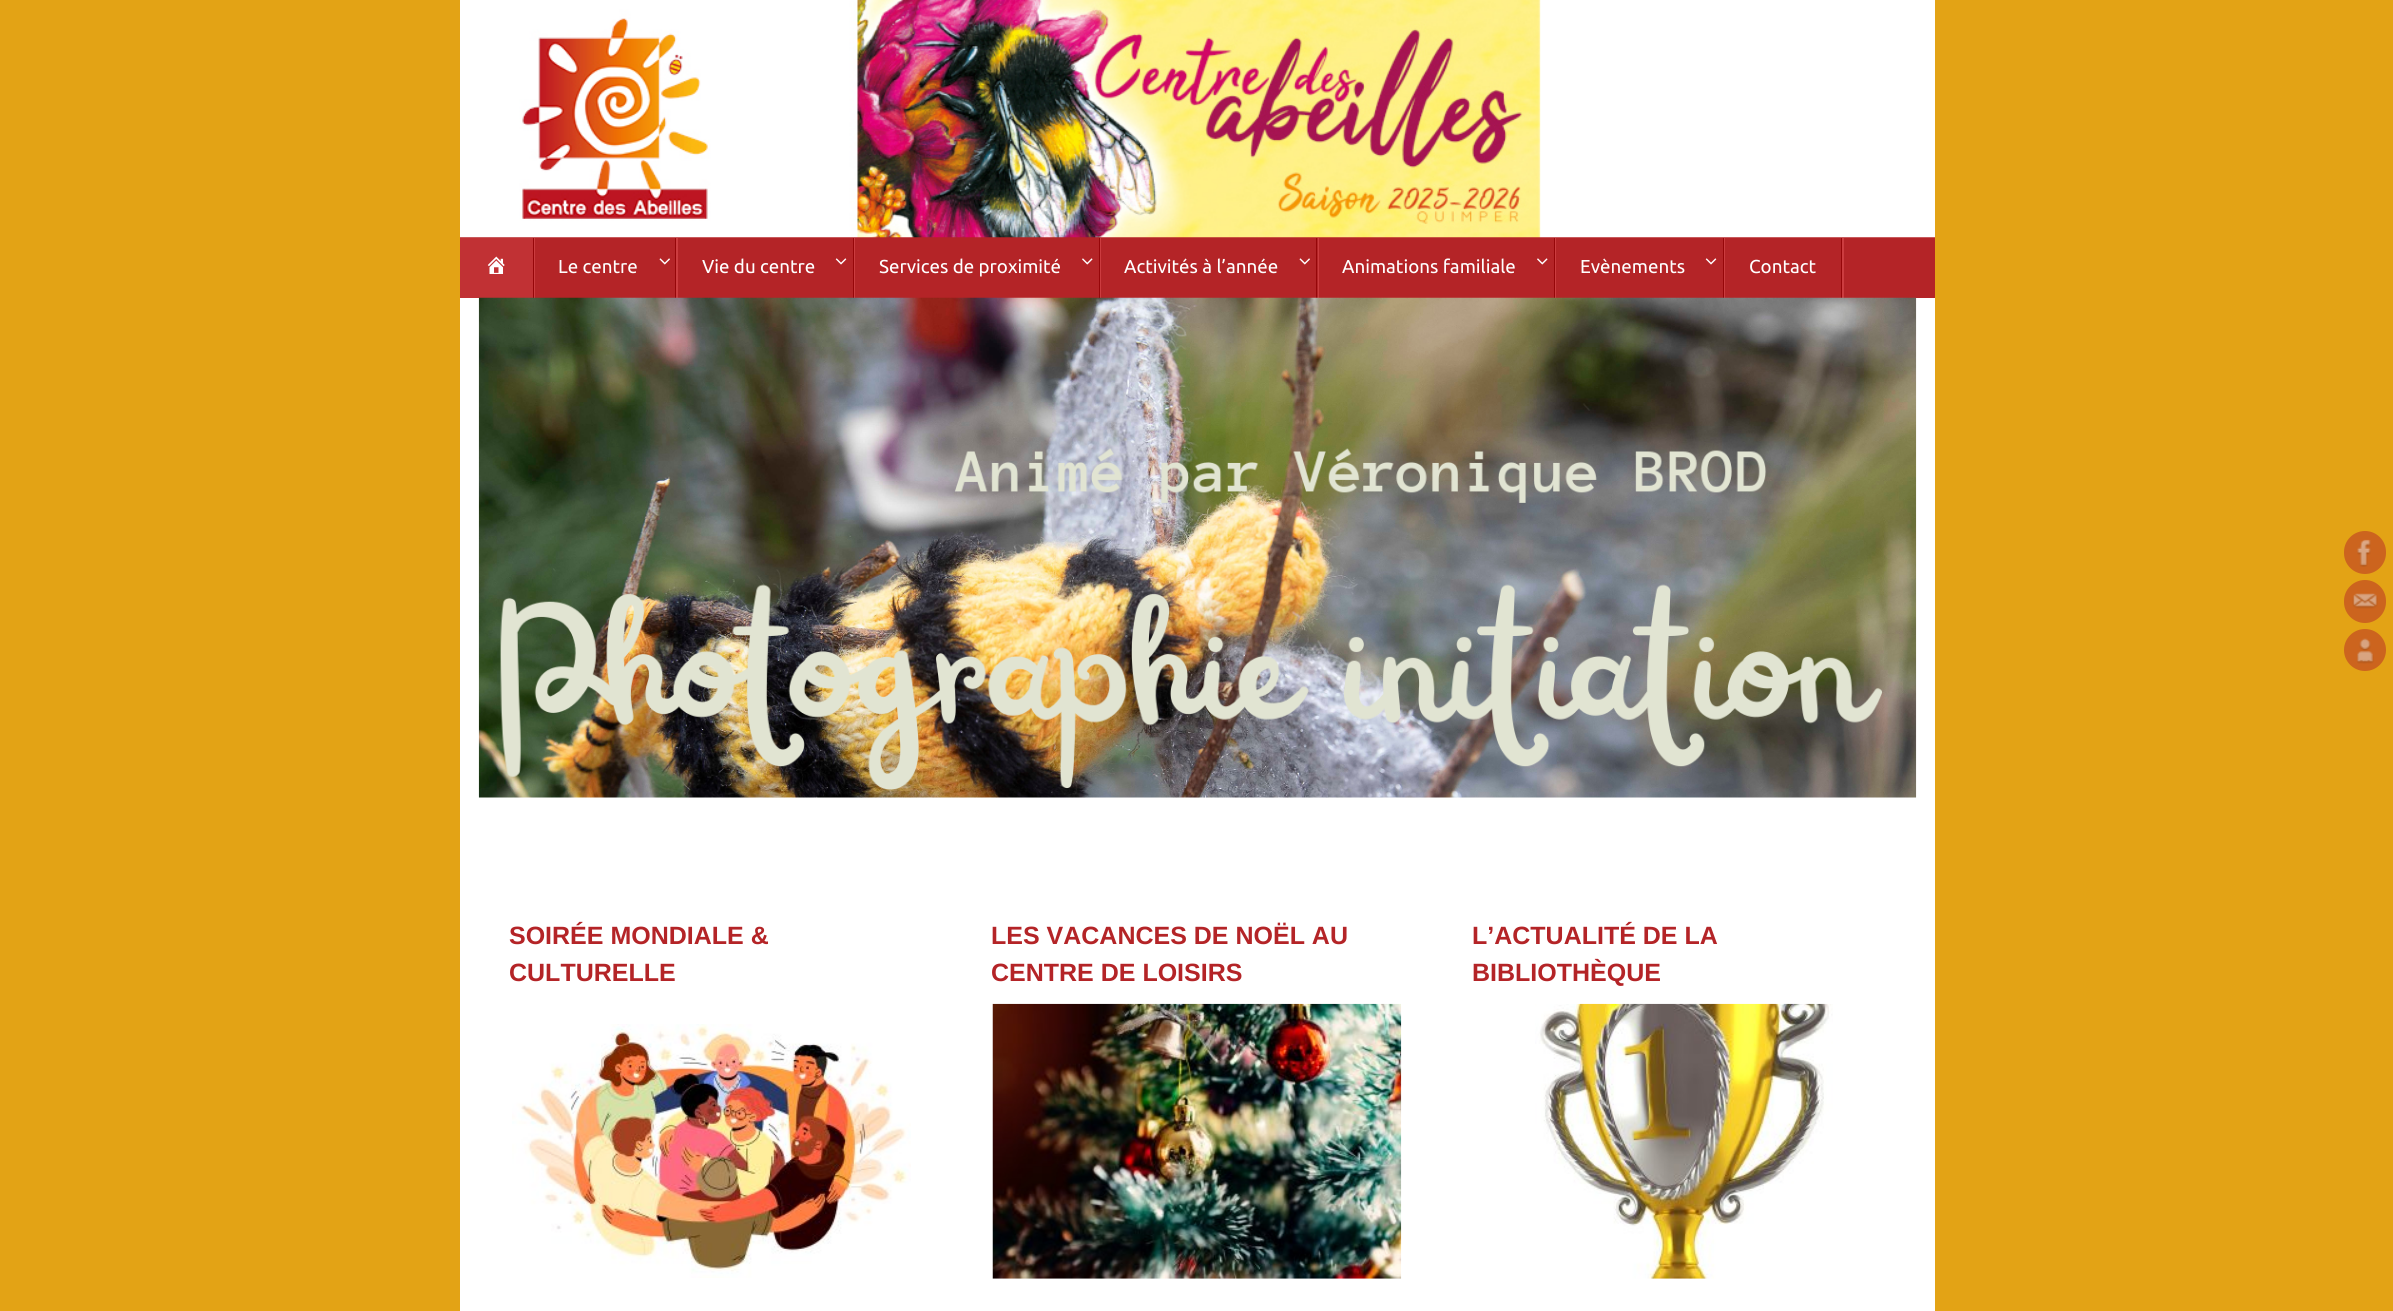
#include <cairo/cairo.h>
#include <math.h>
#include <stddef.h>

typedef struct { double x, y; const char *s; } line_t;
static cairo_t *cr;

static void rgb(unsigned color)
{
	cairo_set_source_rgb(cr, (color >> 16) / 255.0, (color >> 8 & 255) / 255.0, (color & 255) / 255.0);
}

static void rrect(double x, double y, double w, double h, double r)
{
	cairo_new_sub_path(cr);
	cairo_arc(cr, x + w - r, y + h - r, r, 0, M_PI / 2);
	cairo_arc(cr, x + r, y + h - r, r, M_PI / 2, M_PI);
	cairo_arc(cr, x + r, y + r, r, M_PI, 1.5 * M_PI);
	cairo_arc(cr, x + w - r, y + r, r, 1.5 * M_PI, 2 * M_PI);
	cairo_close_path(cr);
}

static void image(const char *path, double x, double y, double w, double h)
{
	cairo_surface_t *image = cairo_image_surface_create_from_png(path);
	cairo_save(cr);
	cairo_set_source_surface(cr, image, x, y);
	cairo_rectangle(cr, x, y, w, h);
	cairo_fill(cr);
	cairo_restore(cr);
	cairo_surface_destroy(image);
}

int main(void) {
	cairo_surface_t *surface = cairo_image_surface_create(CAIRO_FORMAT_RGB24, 2393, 1311);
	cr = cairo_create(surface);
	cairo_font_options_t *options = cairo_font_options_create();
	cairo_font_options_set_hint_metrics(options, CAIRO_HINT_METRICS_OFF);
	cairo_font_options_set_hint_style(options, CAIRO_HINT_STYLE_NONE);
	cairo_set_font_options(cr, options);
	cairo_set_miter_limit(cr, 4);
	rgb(0xe3a315);
	cairo_paint(cr);
	rgb(0xb42427);
	cairo_rectangle(cr, 460, 237, 1475, 61);
	cairo_fill(cr);
	image("img/1.png", 460, 0, 1475, 238);
	rgb(0xc13134);
	cairo_rectangle(cr, 460, 238, 73, 60);
	cairo_fill(cr);
	rgb(0xcc3c3f);
	cairo_new_path(cr);
	cairo_move_to(cr, 461, 298);
	cairo_line_to(cr, 535, 298);
	cairo_line_to(cr, 535, 238);
	cairo_line_to(cr, 534, 238);
	cairo_line_to(cr, 534, 298);
	cairo_close_path(cr);
	cairo_fill(cr);
	rgb(0x960609);
	cairo_rectangle(cr, 533, 238, 1, 60);
	cairo_fill(cr);
	image("img/2.png", 487, 256, 18, 18);
	rgb(0xcc3c3f);
	cairo_new_path(cr);
	cairo_move_to(cr, 535, 298);
	cairo_line_to(cr, 678, 298);
	cairo_line_to(cr, 678, 238);
	cairo_line_to(cr, 676, 238);
	cairo_line_to(cr, 676, 298);
	cairo_close_path(cr);
	cairo_fill(cr);
	rgb(0x960609);
	cairo_rectangle(cr, 675, 238, 1, 60);
	cairo_fill(cr);
	image("img/3.png", 659, 258, 11, 7);
	rgb(0xcc3c3f);
	cairo_new_path(cr);
	cairo_move_to(cr, 678, 298);
	cairo_line_to(cr, 855, 298);
	cairo_line_to(cr, 855, 238);
	cairo_line_to(cr, 854, 238);
	cairo_line_to(cr, 854, 298);
	cairo_close_path(cr);
	cairo_fill(cr);
	rgb(0x960609);
	cairo_rectangle(cr, 853, 238, 1, 60);
	cairo_fill(cr);
	image("img/4.png", 835, 258, 12, 7);
	rgb(0xcc3c3f);
	cairo_new_path(cr);
	cairo_move_to(cr, 855, 298);
	cairo_line_to(cr, 1101, 298);
	cairo_line_to(cr, 1101, 238);
	cairo_line_to(cr, 1100, 238);
	cairo_line_to(cr, 1100, 298);
	cairo_close_path(cr);
	cairo_fill(cr);
	rgb(0x960609);
	cairo_rectangle(cr, 1099, 238, 1, 60);
	cairo_fill(cr);
	image("img/5.png", 1082, 258, 11, 7);
	rgb(0xcc3c3f);
	cairo_new_path(cr);
	cairo_move_to(cr, 1101, 298);
	cairo_line_to(cr, 1319, 298);
	cairo_line_to(cr, 1319, 238);
	cairo_line_to(cr, 1318, 238);
	cairo_line_to(cr, 1318, 298);
	cairo_close_path(cr);
	cairo_fill(cr);
	rgb(0x960609);
	cairo_rectangle(cr, 1316, 238, 1, 60);
	cairo_fill(cr);
	image("img/3.png", 1299, 258, 11, 7);
	rgb(0xcc3c3f);
	cairo_new_path(cr);
	cairo_move_to(cr, 1319, 298);
	cairo_line_to(cr, 1556, 298);
	cairo_line_to(cr, 1556, 238);
	cairo_line_to(cr, 1555, 238);
	cairo_line_to(cr, 1555, 298);
	cairo_close_path(cr);
	cairo_fill(cr);
	rgb(0x960609);
	cairo_rectangle(cr, 1554, 238, 1, 60);
	cairo_fill(cr);
	image("img/5.png", 1537, 258, 11, 7);
	rgb(0xcc3c3f);
	cairo_new_path(cr);
	cairo_move_to(cr, 1556, 298);
	cairo_line_to(cr, 1725, 298);
	cairo_line_to(cr, 1725, 238);
	cairo_line_to(cr, 1724, 238);
	cairo_line_to(cr, 1724, 298);
	cairo_close_path(cr);
	cairo_fill(cr);
	rgb(0x960609);
	cairo_rectangle(cr, 1723, 238, 1, 60);
	cairo_fill(cr);
	image("img/4.png", 1705, 258, 12, 7);
	rgb(0xcc3c3f);
	cairo_new_path(cr);
	cairo_move_to(cr, 1725, 298);
	cairo_line_to(cr, 1844, 298);
	cairo_line_to(cr, 1844, 238);
	cairo_line_to(cr, 1842, 238);
	cairo_line_to(cr, 1842, 298);
	cairo_close_path(cr);
	cairo_fill(cr);
	rgb(0x960609);
	cairo_rectangle(cr, 1841, 238, 1, 60);
	cairo_fill(cr);
	rgb(0xcc641e);
	rrect(2344, 531, 42, 43, 21);
	cairo_fill(cr);
	image("img/6.png", 2357, 539, 14, 28);
	rrect(2344, 580, 42, 43, 21);
	cairo_fill(cr);
	image("img/7.png", 2352, 593, 26, 16);
	cairo_arc(cr, 2365, 650, 21, 0, 2 * M_PI);
	cairo_fill(cr);
	image("img/8.png", 2357, 638, 17, 26);
	rgb(0xffffff);
	cairo_rectangle(cr, 460, 298, 1475, 1013);
	cairo_fill(cr);
	image("img/9.png", 478, 297, 1439, 501);
	image("img/10.png", 512, 1024, 399, 254);
	image("img/11.png", 992, 1003, 410, 276);
	image("img/12.png", 1535, 1003, 298, 276);
	cairo_select_font_face(cr, "Ubuntu", CAIRO_FONT_SLANT_NORMAL, CAIRO_FONT_WEIGHT_NORMAL);
	cairo_set_font_size(cr, 18.75);
	{
		static const line_t items[] = {
			{558, 273, "Le centre"},
			{702, 273, "Vie du centre"},
			{879, 273, "Services de proximité"},
			{1124, 273, "Activités à l’année"},
			{1342, 273, "Animations familiale"},
			{1580, 273, "Evènements"},
			{1749, 273, "Contact"},
		};
		for (size_t i = 0; i < sizeof items / sizeof *items; i++) {
			cairo_move_to(cr, items[i].x, items[i].y);
			cairo_show_text(cr, items[i].s);
		}
	}
	cairo_select_font_face(cr, "Liberation Sans", CAIRO_FONT_SLANT_NORMAL, CAIRO_FONT_WEIGHT_BOLD);
	cairo_set_font_size(cr, 25);
	rgb(0xb42427);
	{
		static const line_t items[] = {
			{509, 944, "SOIRÉE MONDIALE &"},
			{509, 981, "CULTURELLE"},
			{991, 944, "LES VACANCES DE NOËL AU"},
			{991, 981, "CENTRE DE LOISIRS"},
			{1472, 944, "L’ACTUALITÉ DE LA"},
			{1472, 981, "BIBLIOTHÈQUE"},
		};
		for (size_t i = 0; i < sizeof items / sizeof *items; i++) {
			cairo_move_to(cr, items[i].x, items[i].y);
			cairo_show_text(cr, items[i].s);
		}
	}
	cairo_surface_write_to_png(surface, "page.png");
	cairo_font_options_destroy(options);
	cairo_destroy(cr);
	cairo_surface_destroy(surface);
	return 0;
}
